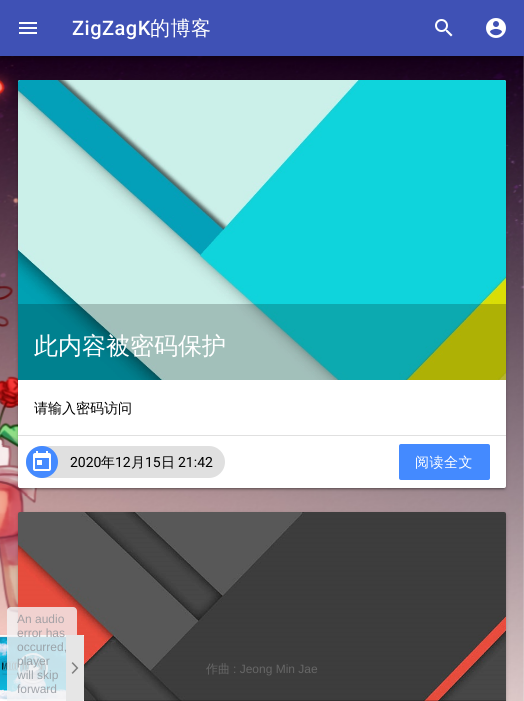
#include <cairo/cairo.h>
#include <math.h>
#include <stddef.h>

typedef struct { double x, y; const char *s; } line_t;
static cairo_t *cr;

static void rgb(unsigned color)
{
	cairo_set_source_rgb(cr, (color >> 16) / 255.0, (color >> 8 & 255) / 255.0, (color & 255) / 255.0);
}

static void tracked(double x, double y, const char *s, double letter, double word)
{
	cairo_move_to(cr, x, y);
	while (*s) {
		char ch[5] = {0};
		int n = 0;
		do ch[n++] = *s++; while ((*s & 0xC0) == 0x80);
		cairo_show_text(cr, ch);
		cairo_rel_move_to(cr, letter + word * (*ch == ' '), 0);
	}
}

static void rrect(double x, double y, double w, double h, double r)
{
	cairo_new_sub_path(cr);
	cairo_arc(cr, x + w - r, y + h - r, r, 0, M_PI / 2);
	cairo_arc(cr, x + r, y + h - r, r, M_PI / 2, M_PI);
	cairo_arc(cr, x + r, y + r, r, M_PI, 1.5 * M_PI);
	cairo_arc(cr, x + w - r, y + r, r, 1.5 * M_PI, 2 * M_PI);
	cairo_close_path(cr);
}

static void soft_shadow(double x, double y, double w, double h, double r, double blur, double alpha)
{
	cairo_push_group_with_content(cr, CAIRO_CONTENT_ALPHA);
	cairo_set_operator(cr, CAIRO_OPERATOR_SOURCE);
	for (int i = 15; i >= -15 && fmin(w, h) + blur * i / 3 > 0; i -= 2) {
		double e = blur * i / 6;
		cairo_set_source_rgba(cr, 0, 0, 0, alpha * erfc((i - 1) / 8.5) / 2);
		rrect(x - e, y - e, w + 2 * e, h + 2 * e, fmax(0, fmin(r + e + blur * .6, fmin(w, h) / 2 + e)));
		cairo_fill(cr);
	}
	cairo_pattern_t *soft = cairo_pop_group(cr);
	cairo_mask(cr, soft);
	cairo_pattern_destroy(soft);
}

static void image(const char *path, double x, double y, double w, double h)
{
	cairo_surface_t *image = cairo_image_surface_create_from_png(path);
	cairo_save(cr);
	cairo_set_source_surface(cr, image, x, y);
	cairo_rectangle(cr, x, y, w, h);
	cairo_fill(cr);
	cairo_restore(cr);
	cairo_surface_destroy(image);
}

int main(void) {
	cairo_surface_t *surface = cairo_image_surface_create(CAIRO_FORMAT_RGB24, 524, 701);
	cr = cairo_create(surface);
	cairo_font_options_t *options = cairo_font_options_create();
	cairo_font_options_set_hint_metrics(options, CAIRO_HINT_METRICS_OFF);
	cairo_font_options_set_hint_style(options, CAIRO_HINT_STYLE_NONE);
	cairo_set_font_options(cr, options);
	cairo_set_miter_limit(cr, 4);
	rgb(0xffffff);
	cairo_paint(cr);
	image("img/1.png", 0, 56, 524, 645);
	rgb(0x000000);
	soft_shadow(0, 1, 524, 56, 0, 5, 0.12);
	soft_shadow(0, 4, 524, 56, 0, 2.5, 0.14);
	soft_shadow(1, 3, 522, 54, 0, 2, 0.2);
	rgb(0x3f51b5);
	cairo_rectangle(cr, 0, 0, 524, 56);
	cairo_fill(cr);
	image("img/2.png", 19, 22, 18, 12);
	image("img/3.png", 435, 19, 18, 18);
	image("img/4.png", 486, 18, 20, 20);
	rgb(0x000000);
	soft_shadow(18, 81, 488, 408, 2, 2.5, 0.12);
	soft_shadow(18, 82, 488, 408, 2, 1, 0.14);
	soft_shadow(20, 85, 484, 404, 0, 0.5, 0.2);
	rgb(0xffffff);
	rrect(18, 80, 488, 408, 2);
	cairo_fill(cr);
	image("img/5.png", 18, 80, 488, 300);
	cairo_set_source_rgba(cr, 0, 0, 0, 0.2);
	cairo_rectangle(cr, 18, 304, 488, 76);
	cairo_fill(cr);
	rgb(0xe0e0e0);
	cairo_rectangle(cr, 18, 435, 488, 1);
	cairo_fill(cr);
	rrect(26, 446, 199, 32, 16);
	cairo_fill(cr);
	rgb(0x448aff);
	cairo_arc(cr, 42, 462, 16, 0, 2 * M_PI);
	cairo_fill(cr);
	image("img/6.png", 33, 451, 18, 20);
	rrect(399, 444, 91, 36, 2);
	cairo_fill(cr);
	rgb(0x000000);
	soft_shadow(18, 513, 488, 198, 2, 2.5, 0.12);
	soft_shadow(18, 514, 488, 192, 2, 1, 0.14);
	image("img/7.png", 18, 512, 488, 189);
	cairo_set_source_rgba(cr, 0, 0, 0, 0.2);
	cairo_rectangle(cr, 84, 700, 422, 1);
	cairo_fill(cr);
	rgb(0xffffff);
	cairo_rectangle(cr, 82, 635, 2, 66);
	cairo_fill(cr);
	image("img/8.png", 0, 635, 66, 66);
	cairo_save(cr);
	cairo_set_fill_rule(cr, CAIRO_FILL_RULE_EVEN_ODD);
	cairo_new_path(cr);
	cairo_move_to(cr, 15, 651);
	cairo_line_to(cr, 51, 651);
	cairo_line_to(cr, 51, 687);
	cairo_line_to(cr, 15, 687);
	cairo_close_path(cr);
	cairo_move_to(cr, 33, 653);
	cairo_curve_to(cr, 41.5, 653, 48, 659.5, 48, 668);
	cairo_curve_to(cr, 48, 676.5, 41.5, 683, 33, 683);
	cairo_curve_to(cr, 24.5, 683, 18, 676.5, 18, 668);
	cairo_curve_to(cr, 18, 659.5, 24.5, 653, 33, 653);
	cairo_close_path(cr);
	cairo_clip(cr);
	rgb(0x000000);
	soft_shadow(18, 654, 30, 30, 15, 0.5, 0.16);
	cairo_restore(cr);
	cairo_set_source_rgba(cr, 0, 0, 0, 0.16);
	cairo_arc(cr, 33, 668, 15, 0, 2 * M_PI);
	cairo_fill(cr);
	cairo_arc(cr, 33, 668, 14, 0, 2 * M_PI);
	cairo_set_source_rgba(cr, 1, 1, 1, 0.8);
	cairo_stroke(cr);
	image("img/9.png", 28, 662, 12, 13);
	cairo_set_source_rgba(cr, 0.957, 0.957, 0.961, 0.8);
	rrect(7, 607, 70, 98, 4);
	cairo_fill(cr);
	rgb(0xe6e6e6);
	cairo_new_path(cr);
	cairo_move_to(cr, 66, 635);
	cairo_line_to(cr, 82, 635);
	cairo_curve_to(cr, 83, 635, 84, 636, 84, 637);
	cairo_line_to(cr, 84, 699);
	cairo_curve_to(cr, 84, 700, 83, 701, 82, 701);
	cairo_line_to(cr, 66, 701);
	cairo_close_path(cr);
	cairo_fill(cr);
	image("img/10.png", 71, 662, 8, 12);
	cairo_select_font_face(cr, "Roboto Medium", CAIRO_FONT_SLANT_NORMAL, CAIRO_FONT_WEIGHT_NORMAL);
	cairo_set_font_size(cr, 20);
	rgb(0xffffff);
	tracked(72, 35, "ZigZagK", 0.5, 0);
	cairo_select_font_face(cr, "WenQuanYi Zen Hei Medium", CAIRO_FONT_SLANT_NORMAL, CAIRO_FONT_WEIGHT_NORMAL);
	tracked(150, 35, "的博客", 0.5, 0);
	cairo_set_font_size(cr, 24);
	cairo_move_to(cr, 34, 354);
	cairo_show_text(cr, "此内容被密码保护");
	cairo_set_font_size(cr, 14);
	rgb(0x000000);
	cairo_move_to(cr, 34, 413);
	cairo_show_text(cr, "请输入密码访问");
	cairo_select_font_face(cr, "Roboto", CAIRO_FONT_SLANT_NORMAL, CAIRO_FONT_WEIGHT_NORMAL);
	cairo_move_to(cr, 70, 467);
	cairo_show_text(cr, "2020");
	cairo_select_font_face(cr, "WenQuanYi Zen Hei Medium", CAIRO_FONT_SLANT_NORMAL, CAIRO_FONT_WEIGHT_NORMAL);
	cairo_move_to(cr, 101, 467);
	cairo_show_text(cr, "年");
	cairo_select_font_face(cr, "Roboto", CAIRO_FONT_SLANT_NORMAL, CAIRO_FONT_WEIGHT_NORMAL);
	cairo_move_to(cr, 115, 467);
	cairo_show_text(cr, "12");
	cairo_select_font_face(cr, "WenQuanYi Zen Hei Medium", CAIRO_FONT_SLANT_NORMAL, CAIRO_FONT_WEIGHT_NORMAL);
	cairo_move_to(cr, 131, 467);
	cairo_show_text(cr, "月");
	cairo_select_font_face(cr, "Roboto", CAIRO_FONT_SLANT_NORMAL, CAIRO_FONT_WEIGHT_NORMAL);
	cairo_move_to(cr, 145, 467);
	cairo_show_text(cr, "15");
	cairo_select_font_face(cr, "WenQuanYi Zen Hei Medium", CAIRO_FONT_SLANT_NORMAL, CAIRO_FONT_WEIGHT_NORMAL);
	cairo_move_to(cr, 161, 467);
	cairo_show_text(cr, "日");
	cairo_select_font_face(cr, "Roboto", CAIRO_FONT_SLANT_NORMAL, CAIRO_FONT_WEIGHT_NORMAL);
	cairo_move_to(cr, 178, 467);
	cairo_show_text(cr, "21:42");
	cairo_select_font_face(cr, "WenQuanYi Zen Hei Medium", CAIRO_FONT_SLANT_NORMAL, CAIRO_FONT_WEIGHT_NORMAL);
	rgb(0xffffff);
	tracked(415, 467, "阅读全文", 0.5, 0);
	cairo_select_font_face(cr, "Liberation Sans", CAIRO_FONT_SLANT_NORMAL, CAIRO_FONT_WEIGHT_NORMAL);
	cairo_set_font_size(cr, 12);
	rgb(0xa3a0a4);
	cairo_move_to(cr, 17, 623);
	cairo_show_text(cr, "An audio");
	cairo_move_to(cr, 17, 637);
	cairo_show_text(cr, "error has");
	rgb(0x9ba3a9);
	{
		static const line_t items[] = {
			{17, 651, "occurred,"},
			{17, 665, "player"},
			{17, 679, "will skip"},
		};
		for (size_t i = 0; i < sizeof items / sizeof *items; i++) {
			cairo_move_to(cr, items[i].x, items[i].y);
			cairo_show_text(cr, items[i].s);
		}
	}
	rgb(0xa1a5ab);
	cairo_move_to(cr, 17, 693);
	cairo_show_text(cr, "forward");
	cairo_select_font_face(cr, "WenQuanYi Zen Hei Medium", CAIRO_FONT_SLANT_NORMAL, CAIRO_FONT_WEIGHT_NORMAL);
	rgb(0x666666);
	cairo_move_to(cr, 206, 673);
	cairo_show_text(cr, "作曲");
	cairo_select_font_face(cr, "Liberation Sans", CAIRO_FONT_SLANT_NORMAL, CAIRO_FONT_WEIGHT_NORMAL);
	cairo_move_to(cr, 233, 673);
	cairo_show_text(cr, ": Jeong Min Jae");
	cairo_surface_write_to_png(surface, "page.png");
	cairo_font_options_destroy(options);
	cairo_destroy(cr);
	cairo_surface_destroy(surface);
	return 0;
}
